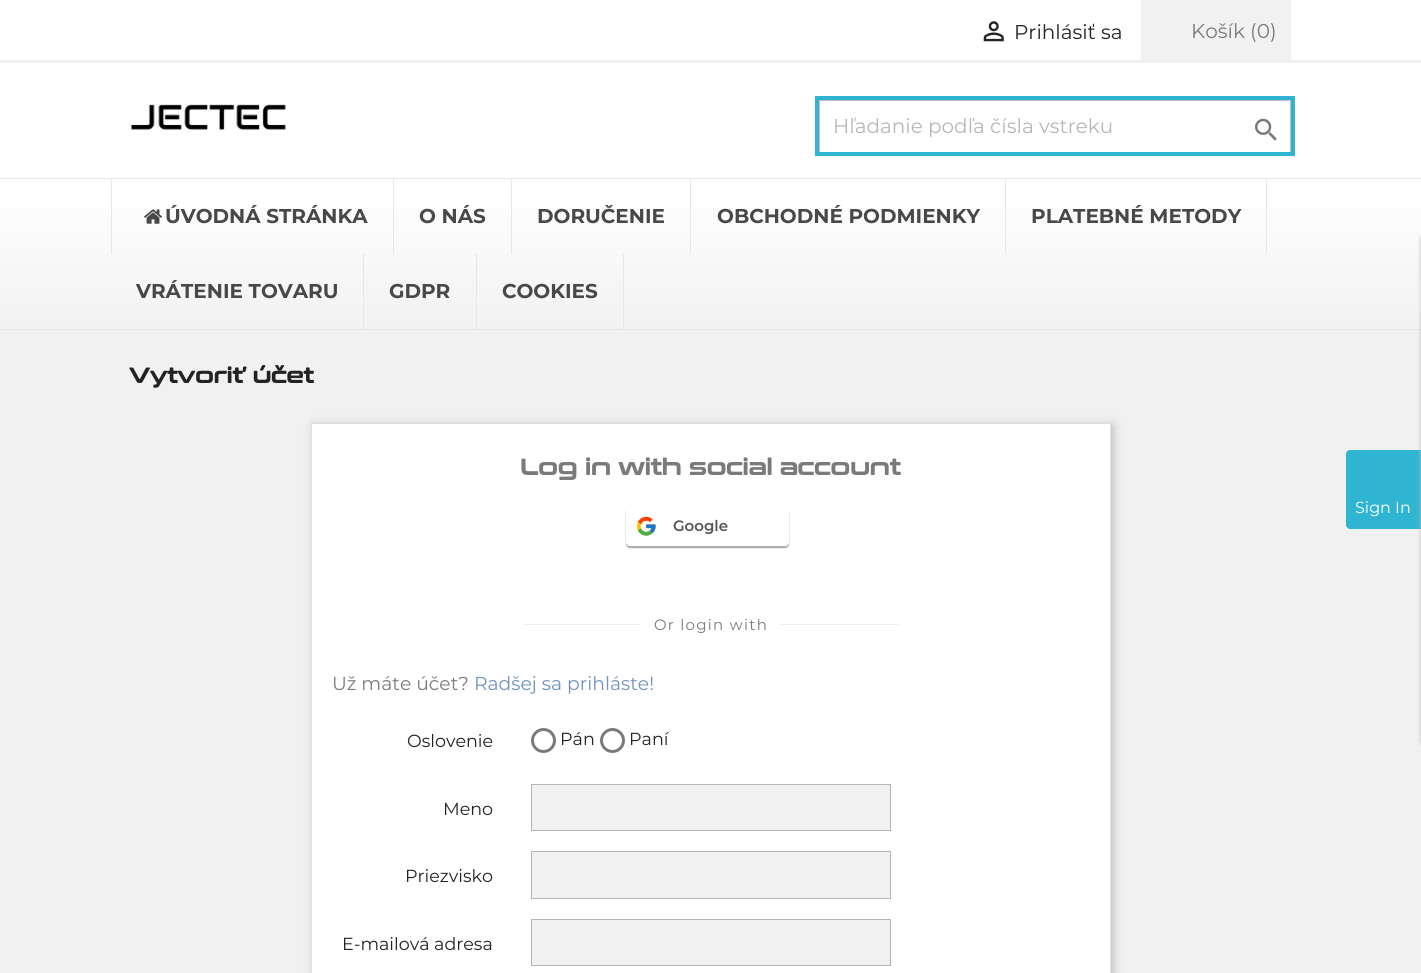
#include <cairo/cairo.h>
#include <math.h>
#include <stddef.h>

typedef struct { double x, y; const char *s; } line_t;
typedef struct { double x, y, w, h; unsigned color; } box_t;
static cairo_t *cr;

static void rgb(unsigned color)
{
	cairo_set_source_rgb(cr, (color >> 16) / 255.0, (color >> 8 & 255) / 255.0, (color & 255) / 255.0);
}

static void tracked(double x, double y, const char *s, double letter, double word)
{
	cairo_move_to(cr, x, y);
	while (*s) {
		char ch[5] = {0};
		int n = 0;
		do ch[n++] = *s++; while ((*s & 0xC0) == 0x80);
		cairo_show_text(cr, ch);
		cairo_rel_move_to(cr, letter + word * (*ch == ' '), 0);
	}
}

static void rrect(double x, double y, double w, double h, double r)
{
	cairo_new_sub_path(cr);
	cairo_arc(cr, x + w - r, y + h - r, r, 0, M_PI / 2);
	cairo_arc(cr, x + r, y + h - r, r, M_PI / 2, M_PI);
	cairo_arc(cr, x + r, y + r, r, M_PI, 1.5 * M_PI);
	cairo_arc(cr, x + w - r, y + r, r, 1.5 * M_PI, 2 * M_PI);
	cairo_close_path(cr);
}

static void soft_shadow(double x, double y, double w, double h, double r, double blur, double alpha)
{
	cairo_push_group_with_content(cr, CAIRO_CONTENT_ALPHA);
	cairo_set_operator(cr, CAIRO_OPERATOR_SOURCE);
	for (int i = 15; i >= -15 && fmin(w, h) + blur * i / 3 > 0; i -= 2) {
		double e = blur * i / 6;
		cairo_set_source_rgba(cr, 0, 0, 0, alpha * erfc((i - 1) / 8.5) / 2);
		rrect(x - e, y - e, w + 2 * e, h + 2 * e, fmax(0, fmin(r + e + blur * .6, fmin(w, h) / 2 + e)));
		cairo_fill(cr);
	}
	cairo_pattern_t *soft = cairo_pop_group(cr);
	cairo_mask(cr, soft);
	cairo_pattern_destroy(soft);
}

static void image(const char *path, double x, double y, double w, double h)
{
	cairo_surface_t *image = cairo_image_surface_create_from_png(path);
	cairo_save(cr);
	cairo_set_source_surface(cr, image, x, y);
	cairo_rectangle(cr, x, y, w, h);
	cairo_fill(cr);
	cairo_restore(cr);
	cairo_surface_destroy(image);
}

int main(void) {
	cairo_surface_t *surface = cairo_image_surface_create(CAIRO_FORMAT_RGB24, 1421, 973);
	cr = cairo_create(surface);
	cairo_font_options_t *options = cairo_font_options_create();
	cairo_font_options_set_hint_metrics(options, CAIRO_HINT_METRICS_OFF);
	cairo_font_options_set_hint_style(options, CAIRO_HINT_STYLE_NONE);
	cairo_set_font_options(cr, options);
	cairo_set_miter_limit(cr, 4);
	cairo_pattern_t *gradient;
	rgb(0xffffff);
	cairo_paint(cr);
	rgb(0xf1f1f1);
	cairo_rectangle(cr, 0, 60, 1421, 3);
	cairo_fill(cr);
	image("img/1.png", 983, 21, 21, 21);
	cairo_rectangle(cr, 1141, 0, 150, 60);
	cairo_fill(cr);
	image("img/2.png", 131, 104, 155, 26);
	cairo_rectangle(cr, 819.5, 100.5, 471, 52);
	rgb(0xbfbfbf);
	cairo_set_line_width(cr, 1);
	cairo_stroke(cr);
	cairo_rectangle(cr, 817, 98, 476, 56);
	rgb(0x2fb5d2);
	cairo_set_line_width(cr, 4);
	cairo_stroke(cr);
	image("img/3.png", 1255, 118, 22, 23);
	rgb(0xf1f1f1);
	cairo_rectangle(cr, 0, 330, 1421, 643);
	cairo_fill(cr);
	rgb(0x2fb5d2);
	cairo_new_path(cr);
	cairo_move_to(cr, 1350, 450);
	cairo_line_to(cr, 1421, 450);
	cairo_line_to(cr, 1421, 529);
	cairo_line_to(cr, 1350, 529);
	cairo_curve_to(cr, 1348, 529, 1346, 527, 1346, 525);
	cairo_line_to(cr, 1346, 454);
	cairo_curve_to(cr, 1346, 452, 1348, 450, 1350, 450);
	cairo_close_path(cr);
	cairo_fill(cr);
	gradient = cairo_pattern_create_linear(711, 179, 711, 329);
	cairo_pattern_add_color_stop_rgba(gradient, 0, 1, 1, 1, 1);
	cairo_pattern_add_color_stop_rgba(gradient, 1, 0.949, 0.949, 0.949, 1);
	cairo_set_source(cr, gradient);
	cairo_pattern_destroy(gradient);
	cairo_rectangle(cr, 0, 208, 1421, 121);
	cairo_fill(cr);
	rgb(0xe7e7e7);
	cairo_rectangle(cr, 0, 329, 1421, 1);
	cairo_fill(cr);
	rgb(0xbbbbbb);
	soft_shadow(1421, 235, 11, 511, 5, 2, 1);
	{
		static const box_t items[] = {
			{0, 178, 1421, 1, 0xe7e7e7},
			{393, 179, 1, 75, 0xe7e7e7},
			{111, 179, 1, 75, 0xe7e7e7},
		};
		for (size_t i = 0; i < sizeof items / sizeof *items; i++) {
			rgb(items[i].color);
			cairo_rectangle(cr, items[i].x, items[i].y, items[i].w, items[i].h);
			cairo_fill(cr);
		}
	}
	image("img/4.png", 144, 209, 18, 15);
	{
		static const box_t items[] = {
			{511, 179, 1, 75, 0xe7e7e7},
			{690, 179, 1, 75, 0xe7e7e7},
			{1005, 179, 1, 75, 0xe7e7e7},
			{1266, 179, 1, 75, 0xe7e7e7},
			{363, 254, 1, 75, 0xe7e7e7},
			{476, 254, 1, 75, 0xe7e7e7},
			{623, 254, 1, 75, 0xe7e7e7},
		};
		for (size_t i = 0; i < sizeof items / sizeof *items; i++) {
			rgb(items[i].color);
			cairo_rectangle(cr, items[i].x, items[i].y, items[i].w, items[i].h);
			cairo_fill(cr);
		}
	}
	rgb(0x000000);
	soft_shadow(314, 425, 800, 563, 0, 5, 0.2);
	rgb(0xffffff);
	cairo_rectangle(cr, 311.5, 423.5, 799, 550);
	cairo_fill_preserve(cr);
	rgb(0xdfdfdf);
	cairo_set_line_width(cr, 1);
	cairo_stroke(cr);
	rgb(0xaaaaaa);
	soft_shadow(626, 508, 163, 40, 4, 0.5, 1);
	rgb(0xffffff);
	rrect(626, 506, 163, 40, 4);
	cairo_fill(cr);
	cairo_rectangle(cr, 628, 545, 2, 1);
	cairo_fill(cr);
	image("img/5.png", 636, 516, 20, 20);
	rgb(0xeeeeee);
	cairo_rectangle(cr, 524, 624, 375, 1);
	cairo_fill(cr);
	rgb(0xffffff);
	cairo_new_path(cr);
	cairo_move_to(cr, 710.5, 609);
	cairo_curve_to(cr, 749, 609, 780, 616, 780, 624.5);
	cairo_curve_to(cr, 780, 633, 749, 640, 710.5, 640);
	cairo_curve_to(cr, 672, 640, 641, 633, 641, 624.5);
	cairo_curve_to(cr, 641, 616, 672, 609, 710.5, 609);
	cairo_close_path(cr);
	cairo_fill(cr);
	cairo_arc(cr, 543.5, 740.5, 11, 0, 2 * M_PI);
	rgb(0x7a7a7a);
	cairo_set_line_width(cr, 3);
	cairo_stroke(cr);
	cairo_arc(cr, 612.5, 740.5, 11, 0, 2 * M_PI);
	cairo_stroke(cr);
	rgb(0xf1f1f1);
	cairo_rectangle(cr, 531.5, 784.5, 359, 46);
	cairo_fill_preserve(cr);
	rgb(0xb5b5b5);
	cairo_set_line_width(cr, 1);
	cairo_stroke(cr);
	rgb(0xf1f1f1);
	cairo_rectangle(cr, 531.5, 851.5, 359, 47);
	cairo_fill_preserve(cr);
	rgb(0xb5b5b5);
	cairo_stroke(cr);
	rgb(0xf1f1f1);
	cairo_rectangle(cr, 531.5, 919.5, 359, 46);
	cairo_fill_preserve(cr);
	rgb(0xb5b5b5);
	cairo_stroke(cr);
	cairo_select_font_face(cr, "Montserrat", CAIRO_FONT_SLANT_NORMAL, CAIRO_FONT_WEIGHT_NORMAL);
	cairo_set_font_size(cr, 20);
	rgb(0x232323);
	cairo_move_to(cr, 1014, 39);
	cairo_show_text(cr, "Prihlásiť sa");
	rgb(0x7a7a7a);
	cairo_move_to(cr, 1191, 38);
	cairo_show_text(cr, "Košík (0)");
	rgb(0xb7b7b7);
	cairo_move_to(cr, 833, 133);
	cairo_show_text(cr, "Hľadanie podľa čísla vstreku");
	cairo_set_font_size(cr, 16);
	rgb(0xffffff);
	cairo_move_to(cr, 1355, 513);
	cairo_show_text(cr, "Sign In");
	cairo_select_font_face(cr, "Montserrat", CAIRO_FONT_SLANT_NORMAL, CAIRO_FONT_WEIGHT_BOLD);
	cairo_set_font_size(cr, 20);
	rgb(0x484848);
	{
		static const line_t items[] = {
			{165, 223, "ÚVODNÁ STRÁNKA"},
			{419, 223, "O NÁS"},
			{537, 223, "DORUČENIE"},
			{717, 223, "OBCHODNÉ PODMIENKY"},
			{1031, 223, "PLATEBNÉ METODY"},
			{136, 298, "VRÁTENIE TOVARU"},
			{389, 298, "GDPR"},
			{502, 298, "COOKIES"},
		};
		for (size_t i = 0; i < sizeof items / sizeof *items; i++) {
			cairo_move_to(cr, items[i].x, items[i].y);
			cairo_show_text(cr, items[i].s);
		}
	}
	cairo_select_font_face(cr, "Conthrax", CAIRO_FONT_SLANT_NORMAL, CAIRO_FONT_WEIGHT_BOLD);
	cairo_set_font_size(cr, 21.25);
	rgb(0x232323);
	cairo_move_to(cr, 129, 383);
	cairo_show_text(cr, "Vytvoriť účet");
	cairo_set_font_size(cr, 22.5);
	rgb(0x7a7a7a);
	cairo_move_to(cr, 520, 475);
	cairo_show_text(cr, "Log in with social account");
	cairo_select_font_face(cr, "Montserrat SemiBold", CAIRO_FONT_SLANT_NORMAL, CAIRO_FONT_WEIGHT_NORMAL);
	cairo_set_font_size(cr, 15);
	rgb(0x555555);
	cairo_move_to(cr, 673, 531);
	cairo_show_text(cr, "Google");
	cairo_select_font_face(cr, "Montserrat", CAIRO_FONT_SLANT_NORMAL, CAIRO_FONT_WEIGHT_NORMAL);
	rgb(0x7a7a7a);
	tracked(654, 630, "Or login with", 1.25, 0);
	cairo_set_font_size(cr, 18.75);
	cairo_move_to(cr, 332, 690);
	cairo_show_text(cr, "Už máte účet?");
	rgb(0x7092be);
	cairo_move_to(cr, 474, 690);
	cairo_show_text(cr, "Radšej sa prihláste!");
	cairo_set_font_size(cr, 17.5);
	rgb(0x232323);
	{
		static const line_t items[] = {
			{407, 747, "Oslovenie"},
			{560, 745, "Pán"},
			{629, 745, "Paní"},
			{443, 815, "Meno"},
			{405, 882, "Priezvisko"},
			{342, 950, "E-mailová adresa"},
		};
		for (size_t i = 0; i < sizeof items / sizeof *items; i++) {
			cairo_move_to(cr, items[i].x, items[i].y);
			cairo_show_text(cr, items[i].s);
		}
	}
	cairo_surface_write_to_png(surface, "page.png");
	cairo_font_options_destroy(options);
	cairo_destroy(cr);
	cairo_surface_destroy(surface);
	return 0;
}
